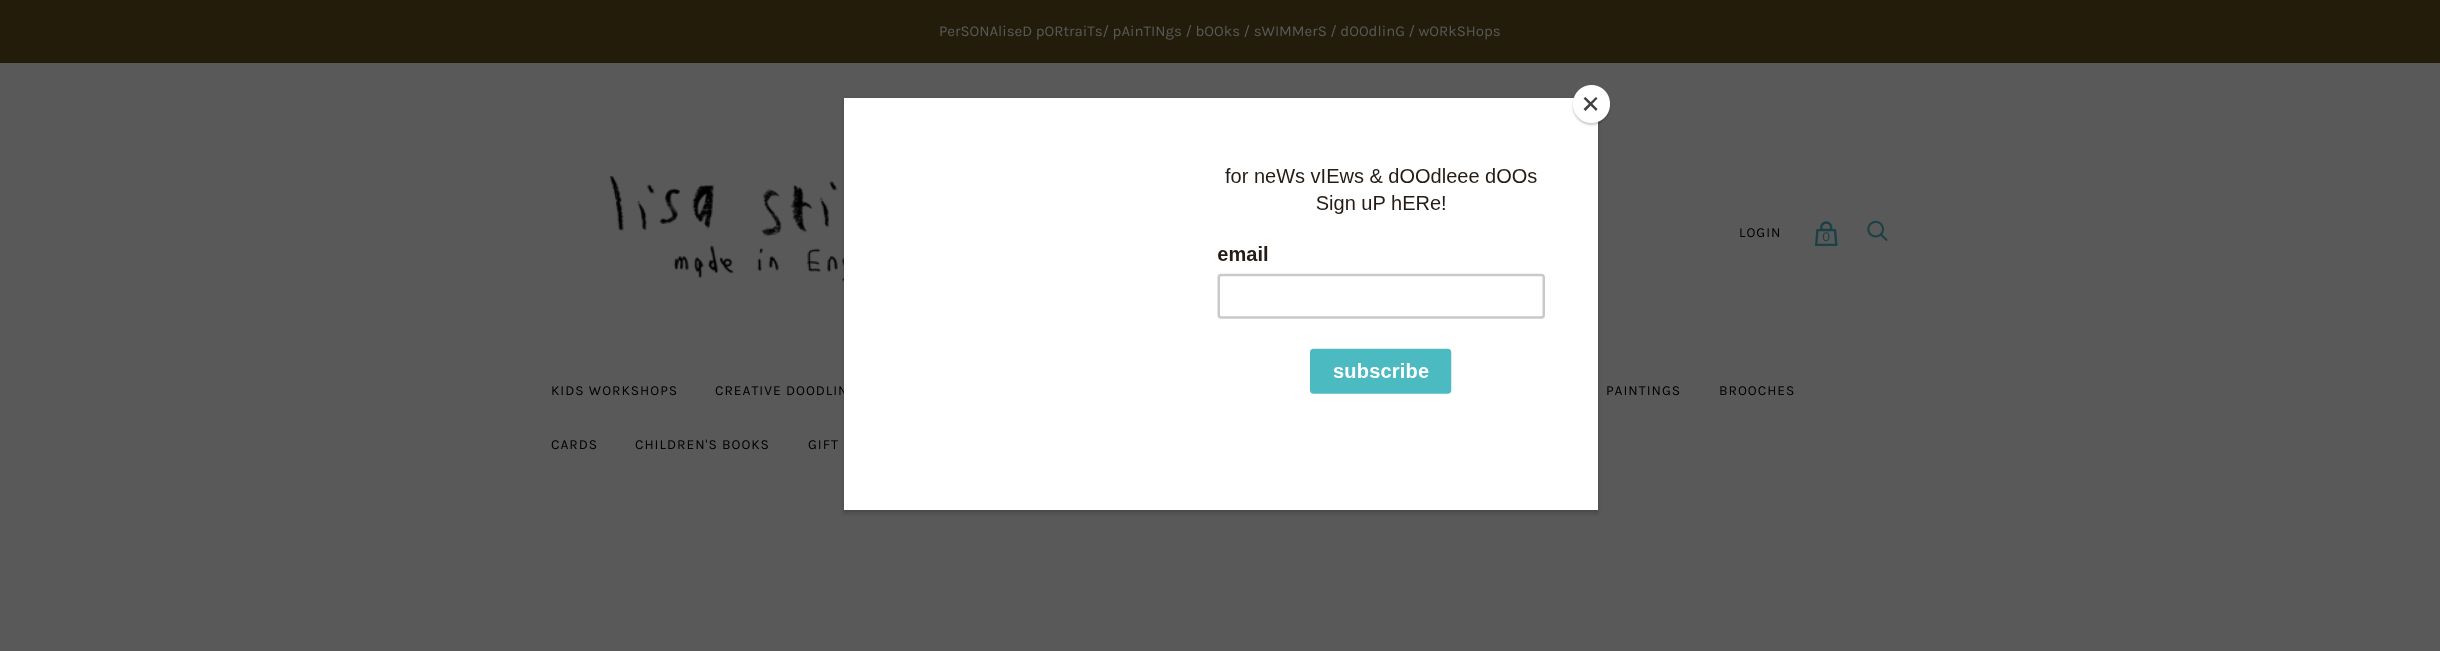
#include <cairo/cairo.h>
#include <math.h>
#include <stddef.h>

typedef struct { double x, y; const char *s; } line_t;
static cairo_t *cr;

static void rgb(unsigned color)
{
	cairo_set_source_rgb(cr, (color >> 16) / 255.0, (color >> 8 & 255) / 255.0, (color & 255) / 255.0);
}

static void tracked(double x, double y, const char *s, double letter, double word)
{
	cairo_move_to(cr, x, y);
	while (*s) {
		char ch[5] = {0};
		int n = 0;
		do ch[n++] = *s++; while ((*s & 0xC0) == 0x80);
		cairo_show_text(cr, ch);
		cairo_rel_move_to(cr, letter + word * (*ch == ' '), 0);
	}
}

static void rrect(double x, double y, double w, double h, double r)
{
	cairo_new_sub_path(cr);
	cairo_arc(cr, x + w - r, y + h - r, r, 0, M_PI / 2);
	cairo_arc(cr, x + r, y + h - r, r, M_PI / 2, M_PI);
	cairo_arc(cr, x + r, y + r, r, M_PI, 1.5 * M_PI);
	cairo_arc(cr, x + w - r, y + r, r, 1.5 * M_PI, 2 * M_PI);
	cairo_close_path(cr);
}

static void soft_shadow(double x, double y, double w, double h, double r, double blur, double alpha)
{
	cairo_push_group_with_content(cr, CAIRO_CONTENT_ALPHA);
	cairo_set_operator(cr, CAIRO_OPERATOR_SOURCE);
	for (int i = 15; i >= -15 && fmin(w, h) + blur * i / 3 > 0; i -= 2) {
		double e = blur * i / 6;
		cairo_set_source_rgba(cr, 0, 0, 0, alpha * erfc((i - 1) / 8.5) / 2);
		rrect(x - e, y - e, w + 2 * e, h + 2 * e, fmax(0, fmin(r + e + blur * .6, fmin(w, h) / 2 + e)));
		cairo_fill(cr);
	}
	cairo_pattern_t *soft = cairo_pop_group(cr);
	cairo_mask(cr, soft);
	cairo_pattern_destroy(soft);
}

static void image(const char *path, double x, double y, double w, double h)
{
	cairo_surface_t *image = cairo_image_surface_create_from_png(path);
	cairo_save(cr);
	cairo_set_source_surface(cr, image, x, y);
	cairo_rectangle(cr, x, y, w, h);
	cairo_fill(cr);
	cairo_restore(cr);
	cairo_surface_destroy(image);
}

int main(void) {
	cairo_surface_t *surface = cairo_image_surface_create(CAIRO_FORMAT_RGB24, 2440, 651);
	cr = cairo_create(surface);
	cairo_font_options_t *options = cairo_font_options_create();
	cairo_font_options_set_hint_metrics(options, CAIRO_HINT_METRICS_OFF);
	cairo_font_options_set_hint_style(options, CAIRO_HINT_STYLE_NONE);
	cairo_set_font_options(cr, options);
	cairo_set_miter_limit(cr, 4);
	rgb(0x595959);
	cairo_paint(cr);
	rgb(0x241c0b);
	cairo_rectangle(cr, 0, 0, 2440, 63);
	cairo_fill(cr);
	image("img/2.png", 609, 163, 235, 122);
	rgb(0x000000);
	soft_shadow(844, 100, 754, 413, 0, 2.5, 0.2);
	image("img/3.png", 1815, 221, 23, 25);
	image("img/4.png", 1867, 220, 21, 22);
	cairo_select_font_face(cr, "Karla", CAIRO_FONT_SLANT_NORMAL, CAIRO_FONT_WEIGHT_NORMAL);
	cairo_set_font_size(cr, 15);
	rgb(0x595959);
	cairo_move_to(cr, 939, 36);
	cairo_show_text(cr, "PerSONAliseD pORtraiTs/ pAinTINgs / bOOks / sWIMMerS / dOOdlinG / wORkSHops");
	cairo_set_font_size(cr, 13.75);
	rgb(0x000000);
	tracked(1739, 237, "LOGIN", 1, 0);
	rgb(0x1a4144);
	cairo_move_to(cr, 1822, 241);
	cairo_show_text(cr, "0");
	rgb(0x000000);
	tracked(551, 395, "KIDS WORKSHOPS", 1, 0);
	tracked(715, 395, "CREATIVE DOODLIN", 1, 0);
	image("img/1.png", 844, 98, 754, 412);
	rgb(0x000000);
	soft_shadow(1573, 88, 37, 37, 18.5, 1, 0.2);
	rgb(0xffffff);
	rrect(1573, 85, 37, 38, 18.5);
	cairo_fill(cr);
	rgb(0x414141);
	cairo_new_path(cr);
	cairo_move_to(cr, 1596, 97);
	cairo_line_to(cr, 1597.5, 98.5);
	cairo_line_to(cr, 1585.5, 111);
	cairo_line_to(cr, 1583.5, 109);
	cairo_close_path(cr);
	cairo_fill(cr);
	cairo_new_path(cr);
	cairo_move_to(cr, 1583.5, 98.5);
	cairo_line_to(cr, 1585.5, 97);
	cairo_line_to(cr, 1597.5, 109);
	cairo_line_to(cr, 1596, 111);
	cairo_close_path(cr);
	cairo_fill(cr);
	rgb(0x000000);
	{
		static const line_t items[] = {
			{1606, 395, "PAINTINGS"},
			{1719, 395, "BROOCHES"},
			{551, 449, "CARDS"},
			{635, 449, "CHILDREN'S BOOKS"},
			{808, 449, "GIFT"},
		};
		for (size_t i = 0; i < sizeof items / sizeof *items; i++) {
			tracked(items[i].x, items[i].y, items[i].s, 1, 0);
		}
	}
	cairo_surface_write_to_png(surface, "page.png");
	cairo_font_options_destroy(options);
	cairo_destroy(cr);
	cairo_surface_destroy(surface);
	return 0;
}
